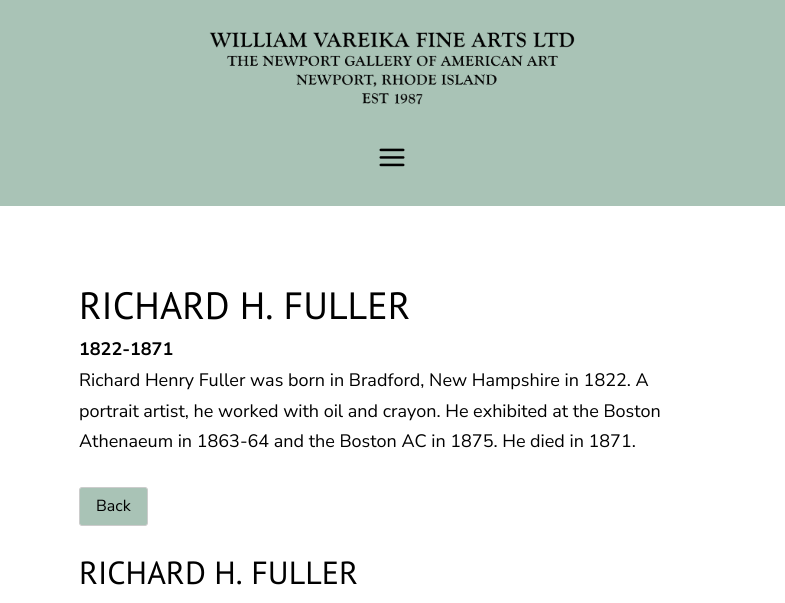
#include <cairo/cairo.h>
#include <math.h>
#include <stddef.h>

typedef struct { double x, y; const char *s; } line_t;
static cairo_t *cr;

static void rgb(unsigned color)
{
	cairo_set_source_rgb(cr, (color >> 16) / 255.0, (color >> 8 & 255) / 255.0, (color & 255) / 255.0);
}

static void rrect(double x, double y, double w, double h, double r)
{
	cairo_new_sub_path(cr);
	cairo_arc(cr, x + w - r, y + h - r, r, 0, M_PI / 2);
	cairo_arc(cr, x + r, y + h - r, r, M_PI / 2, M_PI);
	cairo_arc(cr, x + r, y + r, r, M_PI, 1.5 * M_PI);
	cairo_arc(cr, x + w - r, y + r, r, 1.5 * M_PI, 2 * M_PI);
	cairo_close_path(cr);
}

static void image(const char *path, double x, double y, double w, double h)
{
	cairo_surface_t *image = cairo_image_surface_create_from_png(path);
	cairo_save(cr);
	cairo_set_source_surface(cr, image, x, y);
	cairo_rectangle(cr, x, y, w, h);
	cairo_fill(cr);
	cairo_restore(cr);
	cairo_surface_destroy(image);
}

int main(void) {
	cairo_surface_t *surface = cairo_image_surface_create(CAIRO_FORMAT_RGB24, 785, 603);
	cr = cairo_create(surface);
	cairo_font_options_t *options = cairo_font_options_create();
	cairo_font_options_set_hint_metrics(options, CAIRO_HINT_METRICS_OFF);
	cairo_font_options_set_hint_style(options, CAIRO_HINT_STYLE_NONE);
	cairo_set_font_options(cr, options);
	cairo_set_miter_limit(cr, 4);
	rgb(0xffffff);
	cairo_paint(cr);
	rgb(0xa9c3b6);
	cairo_rectangle(cr, 0, 0, 785, 206);
	cairo_fill(cr);
	image("img/1.png", 209, 32, 366, 73);
	image("img/2.png", 379, 148, 26, 19);
	rrect(79.5, 487.5, 68, 38, 2.5);
	cairo_fill_preserve(cr);
	rgb(0xcccccc);
	cairo_set_line_width(cr, 1);
	cairo_stroke(cr);
	cairo_select_font_face(cr, "PT Sans", CAIRO_FONT_SLANT_NORMAL, CAIRO_FONT_WEIGHT_NORMAL);
	cairo_set_font_size(cr, 38);
	rgb(0x000000);
	cairo_move_to(cr, 79, 319);
	cairo_show_text(cr, "RICHARD H. FULLER");
	cairo_select_font_face(cr, "Nunito Sans", CAIRO_FONT_SLANT_NORMAL, CAIRO_FONT_WEIGHT_BOLD);
	cairo_set_font_size(cr, 18);
	cairo_move_to(cr, 79, 355);
	cairo_show_text(cr, "1822-1871");
	cairo_select_font_face(cr, "Nunito Sans", CAIRO_FONT_SLANT_NORMAL, CAIRO_FONT_WEIGHT_NORMAL);
	{
		static const line_t items[] = {
			{79, 386, "Richard Henry Fuller was born in Bradford, New Hampshire in 1822. A"},
			{79, 417, "portrait artist, he worked with oil and crayon. He exhibited at the Boston"},
			{79, 447, "Athenaeum in 1863-64 and the Boston AC in 1875. He died in 1871."},
		};
		for (size_t i = 0; i < sizeof items / sizeof *items; i++) {
			cairo_move_to(cr, items[i].x, items[i].y);
			cairo_show_text(cr, items[i].s);
		}
	}
	cairo_set_font_size(cr, 16);
	cairo_move_to(cr, 96, 511);
	cairo_show_text(cr, "Back");
	cairo_select_font_face(cr, "PT Sans", CAIRO_FONT_SLANT_NORMAL, CAIRO_FONT_WEIGHT_NORMAL);
	cairo_set_font_size(cr, 32);
	cairo_move_to(cr, 79, 584);
	cairo_show_text(cr, "RICHARD H. FULLER");
	cairo_surface_write_to_png(surface, "page.png");
	cairo_font_options_destroy(options);
	cairo_destroy(cr);
	cairo_surface_destroy(surface);
	return 0;
}
